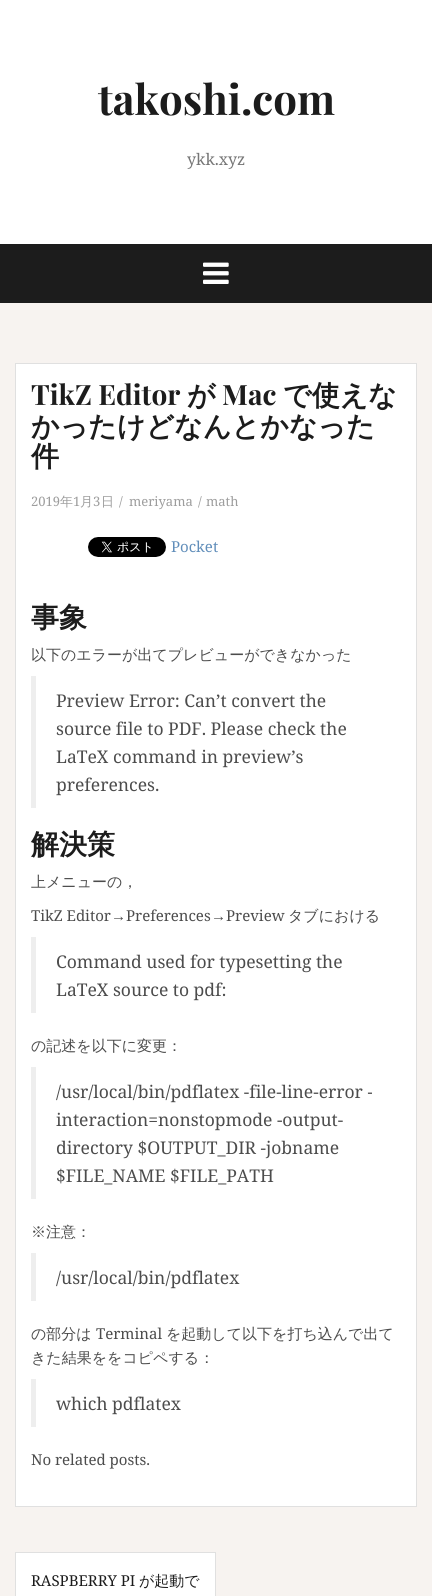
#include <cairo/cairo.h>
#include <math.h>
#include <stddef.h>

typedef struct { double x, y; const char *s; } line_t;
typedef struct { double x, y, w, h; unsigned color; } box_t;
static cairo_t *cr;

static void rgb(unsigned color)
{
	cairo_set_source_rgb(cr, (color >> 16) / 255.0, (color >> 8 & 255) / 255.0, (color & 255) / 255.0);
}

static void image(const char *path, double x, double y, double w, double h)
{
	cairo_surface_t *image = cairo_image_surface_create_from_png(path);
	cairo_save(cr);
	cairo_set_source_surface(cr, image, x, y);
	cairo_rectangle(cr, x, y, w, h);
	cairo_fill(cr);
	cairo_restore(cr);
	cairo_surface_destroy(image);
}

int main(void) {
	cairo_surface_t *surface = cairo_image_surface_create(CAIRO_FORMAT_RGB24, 432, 1596);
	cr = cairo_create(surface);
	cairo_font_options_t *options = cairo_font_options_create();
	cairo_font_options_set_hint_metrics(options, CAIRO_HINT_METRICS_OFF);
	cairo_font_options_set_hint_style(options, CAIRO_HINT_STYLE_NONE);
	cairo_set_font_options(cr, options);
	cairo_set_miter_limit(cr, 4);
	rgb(0xf7f3f0);
	cairo_paint(cr);
	rgb(0xffffff);
	cairo_rectangle(cr, 0, 0, 432, 244);
	cairo_fill(cr);
	rgb(0x1c1c1c);
	cairo_rectangle(cr, 0, 244, 432, 59);
	cairo_fill(cr);
	image("img/1.png", 203, 262, 26, 22);
	rgb(0xffffff);
	cairo_rectangle(cr, 15.5, 363.5, 401, 1143);
	cairo_fill_preserve(cr);
	rgb(0xe0e0e0);
	cairo_set_line_width(cr, 1);
	cairo_stroke(cr);
	image("img/2.png", 88, 537, 78, 20);
	{
		static const box_t items[] = {
			{31, 676, 5, 132, 0xeeeeee},
			{31, 937, 5, 76, 0xeeeeee},
			{31, 1067, 5, 132, 0xeeeeee},
			{31, 1253, 5, 48, 0xeeeeee},
			{31, 1379, 5, 48, 0xeeeeee},
		};
		for (size_t i = 0; i < sizeof items / sizeof *items; i++) {
			rgb(items[i].color);
			cairo_rectangle(cr, items[i].x, items[i].y, items[i].w, items[i].h);
			cairo_fill(cr);
		}
	}
	rgb(0xffffff);
	cairo_rectangle(cr, 15.5, 1552.5, 200, 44);
	cairo_fill_preserve(cr);
	rgb(0xe0e0e0);
	cairo_stroke(cr);
	cairo_select_font_face(cr, "Playfair Display", CAIRO_FONT_SLANT_NORMAL, CAIRO_FONT_WEIGHT_BOLD);
	cairo_set_font_size(cr, 42);
	rgb(0x1c1c1c);
	cairo_move_to(cr, 98, 115);
	cairo_show_text(cr, "takoshi.com");
	cairo_select_font_face(cr, "Noto Serif", CAIRO_FONT_SLANT_NORMAL, CAIRO_FONT_WEIGHT_NORMAL);
	cairo_set_font_size(cr, 16);
	rgb(0x767676);
	cairo_move_to(cr, 187, 165);
	cairo_show_text(cr, "ykk.xyz");
	cairo_select_font_face(cr, "Playfair Display", CAIRO_FONT_SLANT_NORMAL, CAIRO_FONT_WEIGHT_BOLD);
	cairo_set_font_size(cr, 28);
	rgb(0x1c1c1c);
	cairo_move_to(cr, 31, 405);
	cairo_show_text(cr, "TikZ Editor");
	cairo_select_font_face(cr, "WenQuanYi Zen Hei", CAIRO_FONT_SLANT_NORMAL, CAIRO_FONT_WEIGHT_BOLD);
	cairo_move_to(cr, 187, 405);
	cairo_show_text(cr, "が");
	cairo_select_font_face(cr, "Playfair Display", CAIRO_FONT_SLANT_NORMAL, CAIRO_FONT_WEIGHT_BOLD);
	cairo_move_to(cr, 222, 405);
	cairo_show_text(cr, "Mac");
	cairo_select_font_face(cr, "WenQuanYi Zen Hei", CAIRO_FONT_SLANT_NORMAL, CAIRO_FONT_WEIGHT_BOLD);
	{
		static const line_t items[] = {
			{283, 405, "で使えな"},
			{31, 436, "かったけどなんとかなった"},
			{31, 466, "件"},
		};
		for (size_t i = 0; i < sizeof items / sizeof *items; i++) {
			cairo_move_to(cr, items[i].x, items[i].y);
			cairo_show_text(cr, items[i].s);
		}
	}
	cairo_select_font_face(cr, "Noto Serif", CAIRO_FONT_SLANT_NORMAL, CAIRO_FONT_WEIGHT_NORMAL);
	cairo_set_font_size(cr, 13);
	rgb(0x9d9d9d);
	cairo_move_to(cr, 31, 506);
	cairo_show_text(cr, "2019");
	cairo_select_font_face(cr, "WenQuanYi Zen Hei Medium", CAIRO_FONT_SLANT_NORMAL, CAIRO_FONT_WEIGHT_NORMAL);
	cairo_move_to(cr, 60, 506);
	cairo_show_text(cr, "年");
	cairo_select_font_face(cr, "Noto Serif", CAIRO_FONT_SLANT_NORMAL, CAIRO_FONT_WEIGHT_NORMAL);
	cairo_move_to(cr, 73, 506);
	cairo_show_text(cr, "1");
	cairo_select_font_face(cr, "WenQuanYi Zen Hei Medium", CAIRO_FONT_SLANT_NORMAL, CAIRO_FONT_WEIGHT_NORMAL);
	cairo_move_to(cr, 80, 506);
	cairo_show_text(cr, "月");
	cairo_select_font_face(cr, "Noto Serif", CAIRO_FONT_SLANT_NORMAL, CAIRO_FONT_WEIGHT_NORMAL);
	cairo_move_to(cr, 93, 506);
	cairo_show_text(cr, "3");
	cairo_select_font_face(cr, "WenQuanYi Zen Hei Medium", CAIRO_FONT_SLANT_NORMAL, CAIRO_FONT_WEIGHT_NORMAL);
	cairo_move_to(cr, 101, 506);
	cairo_show_text(cr, "日");
	cairo_select_font_face(cr, "Noto Serif", CAIRO_FONT_SLANT_NORMAL, CAIRO_FONT_WEIGHT_NORMAL);
	{
		static const line_t items[] = {
			{119, 506, "/"},
			{129, 506, "meriyama"},
			{198, 506, "/"},
			{206, 506, "math"},
		};
		for (size_t i = 0; i < sizeof items / sizeof *items; i++) {
			cairo_move_to(cr, items[i].x, items[i].y);
			cairo_show_text(cr, items[i].s);
		}
	}
	cairo_set_font_size(cr, 15);
	rgb(0x618eba);
	cairo_move_to(cr, 171, 552);
	cairo_show_text(cr, "Pocket");
	cairo_select_font_face(cr, "WenQuanYi Zen Hei", CAIRO_FONT_SLANT_NORMAL, CAIRO_FONT_WEIGHT_BOLD);
	cairo_set_font_size(cr, 28);
	rgb(0x1c1c1c);
	cairo_move_to(cr, 31, 627);
	cairo_show_text(cr, "事象");
	cairo_select_font_face(cr, "WenQuanYi Zen Hei Medium", CAIRO_FONT_SLANT_NORMAL, CAIRO_FONT_WEIGHT_NORMAL);
	cairo_set_font_size(cr, 15);
	rgb(0x4c4c4c);
	cairo_move_to(cr, 31, 660);
	cairo_show_text(cr, "以下のエラーが出てプレビューができなかった");
	cairo_select_font_face(cr, "Noto Serif", CAIRO_FONT_SLANT_NORMAL, CAIRO_FONT_WEIGHT_NORMAL);
	cairo_set_font_size(cr, 17.5);
	{
		static const line_t items[] = {
			{56, 707, "Preview Error: Can’t convert the"},
			{56, 735, "source file to PDF. Please check the"},
			{56, 763, "LaTeX command in preview’s"},
			{56, 791, "preferences."},
		};
		for (size_t i = 0; i < sizeof items / sizeof *items; i++) {
			cairo_move_to(cr, items[i].x, items[i].y);
			cairo_show_text(cr, items[i].s);
		}
	}
	cairo_select_font_face(cr, "WenQuanYi Zen Hei", CAIRO_FONT_SLANT_NORMAL, CAIRO_FONT_WEIGHT_BOLD);
	cairo_set_font_size(cr, 28);
	rgb(0x1c1c1c);
	cairo_move_to(cr, 31, 854);
	cairo_show_text(cr, "解決策");
	cairo_select_font_face(cr, "WenQuanYi Zen Hei Medium", CAIRO_FONT_SLANT_NORMAL, CAIRO_FONT_WEIGHT_NORMAL);
	cairo_set_font_size(cr, 15);
	rgb(0x4c4c4c);
	cairo_move_to(cr, 31, 887);
	cairo_show_text(cr, "上メニューの，");
	cairo_select_font_face(cr, "Noto Serif", CAIRO_FONT_SLANT_NORMAL, CAIRO_FONT_WEIGHT_NORMAL);
	cairo_move_to(cr, 31, 921);
	cairo_show_text(cr, "TikZ Editor");
	cairo_select_font_face(cr, "Liberation Serif", CAIRO_FONT_SLANT_NORMAL, CAIRO_FONT_WEIGHT_NORMAL);
	cairo_move_to(cr, 111, 921);
	cairo_show_text(cr, "→");
	cairo_select_font_face(cr, "Noto Serif", CAIRO_FONT_SLANT_NORMAL, CAIRO_FONT_WEIGHT_NORMAL);
	cairo_move_to(cr, 126, 921);
	cairo_show_text(cr, "Preferences");
	cairo_select_font_face(cr, "Liberation Serif", CAIRO_FONT_SLANT_NORMAL, CAIRO_FONT_WEIGHT_NORMAL);
	cairo_move_to(cr, 211, 921);
	cairo_show_text(cr, "→");
	cairo_select_font_face(cr, "Noto Serif", CAIRO_FONT_SLANT_NORMAL, CAIRO_FONT_WEIGHT_NORMAL);
	cairo_move_to(cr, 226, 921);
	cairo_show_text(cr, "Preview");
	cairo_select_font_face(cr, "WenQuanYi Zen Hei Medium", CAIRO_FONT_SLANT_NORMAL, CAIRO_FONT_WEIGHT_NORMAL);
	cairo_move_to(cr, 288, 921);
	cairo_show_text(cr, "タブにおける");
	cairo_select_font_face(cr, "Noto Serif", CAIRO_FONT_SLANT_NORMAL, CAIRO_FONT_WEIGHT_NORMAL);
	cairo_set_font_size(cr, 17.5);
	cairo_move_to(cr, 56, 968);
	cairo_show_text(cr, "Command used for typesetting the");
	cairo_move_to(cr, 56, 996);
	cairo_show_text(cr, "LaTeX source to pdf:");
	cairo_select_font_face(cr, "WenQuanYi Zen Hei Medium", CAIRO_FONT_SLANT_NORMAL, CAIRO_FONT_WEIGHT_NORMAL);
	cairo_set_font_size(cr, 15);
	cairo_move_to(cr, 31, 1051);
	cairo_show_text(cr, "の記述を以下に変更：");
	cairo_select_font_face(cr, "Noto Serif", CAIRO_FONT_SLANT_NORMAL, CAIRO_FONT_WEIGHT_NORMAL);
	cairo_set_font_size(cr, 17.5);
	{
		static const line_t items[] = {
			{56, 1098, "/usr/local/bin/pdflatex -file-line-error -"},
			{56, 1126, "interaction=nonstopmode -output-"},
			{56, 1154, "directory $OUTPUT_DIR -jobname"},
			{56, 1182, "$FILE_NAME $FILE_PATH"},
		};
		for (size_t i = 0; i < sizeof items / sizeof *items; i++) {
			cairo_move_to(cr, items[i].x, items[i].y);
			cairo_show_text(cr, items[i].s);
		}
	}
	cairo_select_font_face(cr, "WenQuanYi Zen Hei Medium", CAIRO_FONT_SLANT_NORMAL, CAIRO_FONT_WEIGHT_NORMAL);
	cairo_set_font_size(cr, 15);
	cairo_move_to(cr, 31, 1237);
	cairo_show_text(cr, "※注意：");
	cairo_select_font_face(cr, "Noto Serif", CAIRO_FONT_SLANT_NORMAL, CAIRO_FONT_WEIGHT_NORMAL);
	cairo_set_font_size(cr, 17.5);
	cairo_move_to(cr, 56, 1284);
	cairo_show_text(cr, "/usr/local/bin/pdflatex");
	cairo_select_font_face(cr, "WenQuanYi Zen Hei Medium", CAIRO_FONT_SLANT_NORMAL, CAIRO_FONT_WEIGHT_NORMAL);
	cairo_set_font_size(cr, 15);
	cairo_move_to(cr, 31, 1339);
	cairo_show_text(cr, "の部分は");
	cairo_select_font_face(cr, "Noto Serif", CAIRO_FONT_SLANT_NORMAL, CAIRO_FONT_WEIGHT_NORMAL);
	cairo_move_to(cr, 96, 1339);
	cairo_show_text(cr, "Terminal");
	cairo_select_font_face(cr, "WenQuanYi Zen Hei Medium", CAIRO_FONT_SLANT_NORMAL, CAIRO_FONT_WEIGHT_NORMAL);
	cairo_move_to(cr, 166, 1339);
	cairo_show_text(cr, "を起動して以下を打ち込んで出て");
	cairo_move_to(cr, 31, 1363);
	cairo_show_text(cr, "きた結果ををコピペする：");
	cairo_select_font_face(cr, "Noto Serif", CAIRO_FONT_SLANT_NORMAL, CAIRO_FONT_WEIGHT_NORMAL);
	cairo_set_font_size(cr, 17.5);
	cairo_move_to(cr, 56, 1410);
	cairo_show_text(cr, "which pdflatex");
	cairo_set_font_size(cr, 15);
	cairo_move_to(cr, 31, 1465);
	cairo_show_text(cr, "No related posts.");
	rgb(0x1c1c1c);
	cairo_move_to(cr, 31, 1586);
	cairo_show_text(cr, "RASPBERRY PI");
	cairo_select_font_face(cr, "WenQuanYi Zen Hei Medium", CAIRO_FONT_SLANT_NORMAL, CAIRO_FONT_WEIGHT_NORMAL);
	cairo_move_to(cr, 139, 1586);
	cairo_show_text(cr, "が起動で");
	cairo_surface_write_to_png(surface, "page.png");
	cairo_font_options_destroy(options);
	cairo_destroy(cr);
	cairo_surface_destroy(surface);
	return 0;
}
